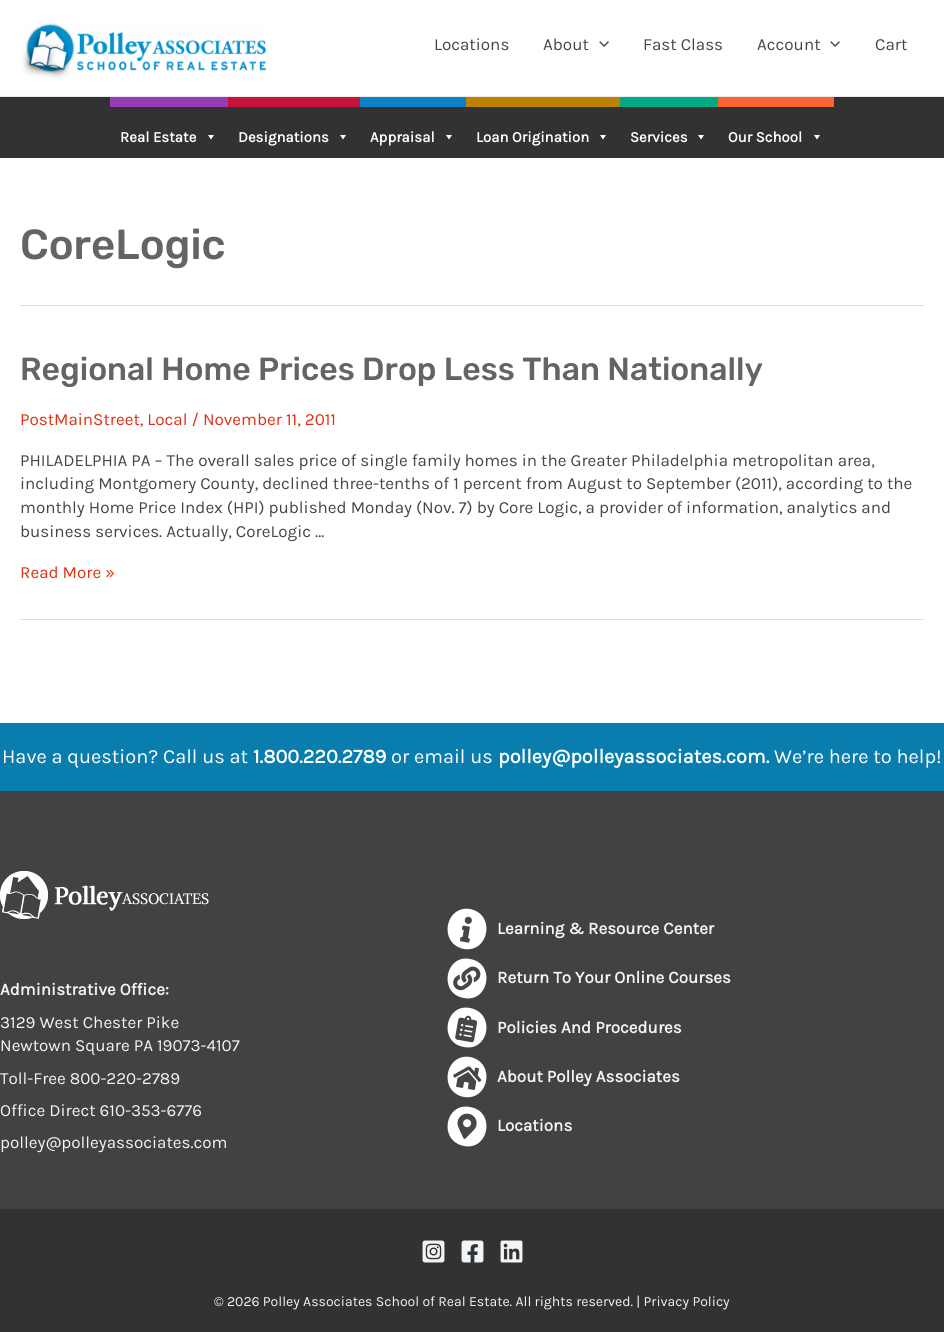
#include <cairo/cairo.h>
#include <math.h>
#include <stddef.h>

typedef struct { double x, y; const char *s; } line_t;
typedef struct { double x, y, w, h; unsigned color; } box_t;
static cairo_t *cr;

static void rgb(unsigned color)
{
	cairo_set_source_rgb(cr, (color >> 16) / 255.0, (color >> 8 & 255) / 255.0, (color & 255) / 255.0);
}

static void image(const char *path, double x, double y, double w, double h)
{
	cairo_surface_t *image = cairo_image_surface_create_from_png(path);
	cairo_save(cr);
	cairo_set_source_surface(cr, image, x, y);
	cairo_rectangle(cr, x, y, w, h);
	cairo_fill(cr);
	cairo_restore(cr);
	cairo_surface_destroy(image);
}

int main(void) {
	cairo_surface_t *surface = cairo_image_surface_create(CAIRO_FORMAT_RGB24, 944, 1332);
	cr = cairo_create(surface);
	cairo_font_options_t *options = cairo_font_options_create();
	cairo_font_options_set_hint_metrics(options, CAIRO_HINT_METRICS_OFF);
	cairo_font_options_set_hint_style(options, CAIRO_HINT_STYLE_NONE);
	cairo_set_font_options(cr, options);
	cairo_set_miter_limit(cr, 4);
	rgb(0xffffff);
	cairo_paint(cr);
	rgb(0xeaeaea);
	cairo_rectangle(cr, 0, 96, 944, 1);
	cairo_fill(cr);
	image("img/1.png", 22, 23, 244, 56);
	image("img/2.png", 599, 41, 10, 6);
	image("img/2.png", 830, 41, 10, 6);
	rgb(0x323232);
	cairo_rectangle(cr, 0, 97, 944, 61);
	cairo_fill(cr);
	rgb(0x963cb4);
	cairo_rectangle(cr, 110, 97, 118, 10);
	cairo_fill(cr);
	rgb(0xffffff);
	cairo_new_path(cr);
	cairo_move_to(cr, 214, 135);
	cairo_line_to(cr, 211, 139.5);
	cairo_line_to(cr, 208, 135);
	cairo_close_path(cr);
	cairo_fill(cr);
	rgb(0xc8143c);
	cairo_rectangle(cr, 228, 97, 132, 10);
	cairo_fill(cr);
	rgb(0xffffff);
	cairo_new_path(cr);
	cairo_move_to(cr, 346, 135);
	cairo_line_to(cr, 343, 139.5);
	cairo_line_to(cr, 340, 135);
	cairo_close_path(cr);
	cairo_fill(cr);
	rgb(0x0a82c8);
	cairo_rectangle(cr, 360, 97, 106, 10);
	cairo_fill(cr);
	rgb(0xffffff);
	cairo_new_path(cr);
	cairo_move_to(cr, 452, 135);
	cairo_line_to(cr, 449, 139.5);
	cairo_line_to(cr, 446, 135);
	cairo_close_path(cr);
	cairo_fill(cr);
	rgb(0xbe8200);
	cairo_rectangle(cr, 466, 97, 154, 10);
	cairo_fill(cr);
	rgb(0xffffff);
	cairo_new_path(cr);
	cairo_move_to(cr, 606, 135);
	cairo_line_to(cr, 603, 139.5);
	cairo_line_to(cr, 600, 135);
	cairo_close_path(cr);
	cairo_fill(cr);
	rgb(0x00aa82);
	cairo_rectangle(cr, 620, 97, 98, 10);
	cairo_fill(cr);
	rgb(0xffffff);
	cairo_new_path(cr);
	cairo_move_to(cr, 704, 135);
	cairo_line_to(cr, 701, 139.5);
	cairo_line_to(cr, 698, 135);
	cairo_close_path(cr);
	cairo_fill(cr);
	rgb(0xfa6432);
	cairo_rectangle(cr, 718, 97, 116, 10);
	cairo_fill(cr);
	rgb(0xffffff);
	cairo_new_path(cr);
	cairo_move_to(cr, 820, 135);
	cairo_line_to(cr, 817, 139.5);
	cairo_line_to(cr, 814, 135);
	cairo_close_path(cr);
	cairo_fill(cr);
	{
		static const box_t items[] = {
			{20, 305, 904, 1, 0xdddddd},
			{20, 619, 904, 1, 0xdddddd},
			{0, 723, 944, 68, 0x097dae},
			{0, 791, 944, 418, 0x424242},
		};
		for (size_t i = 0; i < sizeof items / sizeof *items; i++) {
			rgb(items[i].color);
			cairo_rectangle(cr, items[i].x, items[i].y, items[i].w, items[i].h);
			cairo_fill(cr);
		}
	}
	image("img/3.png", 0, 871, 209, 48);
	rgb(0xffffff);
	cairo_new_path(cr);
	cairo_move_to(cr, 470, 909);
	cairo_curve_to(cr, 496, 914, 489, 953, 464, 949);
	cairo_curve_to(cr, 438, 944, 445, 905, 470, 909);
	cairo_close_path(cr);
	cairo_fill(cr);
	image("img/4.png", 460, 916, 12, 27);
	cairo_new_path(cr);
	cairo_move_to(cr, 470, 959);
	cairo_curve_to(cr, 496, 963, 489, 1003, 464, 998);
	cairo_curve_to(cr, 438, 994, 445, 954, 470, 959);
	cairo_close_path(cr);
	cairo_fill(cr);
	image("img/5.png", 453, 966, 28, 25);
	cairo_new_path(cr);
	cairo_move_to(cr, 470, 1008);
	cairo_curve_to(cr, 496, 1013, 489, 1052, 464, 1047);
	cairo_curve_to(cr, 438, 1043, 445, 1003, 470, 1008);
	cairo_close_path(cr);
	cairo_fill(cr);
	image("img/6.png", 455, 1015, 23, 28);
	cairo_new_path(cr);
	cairo_move_to(cr, 470, 1057);
	cairo_curve_to(cr, 496, 1062, 489, 1101, 464, 1097);
	cairo_curve_to(cr, 438, 1092, 445, 1053, 470, 1057);
	cairo_close_path(cr);
	cairo_fill(cr);
	image("img/7.png", 453, 1066, 29, 24);
	cairo_new_path(cr);
	cairo_move_to(cr, 470, 1107);
	cairo_curve_to(cr, 496, 1111, 489, 1151, 464, 1146);
	cairo_curve_to(cr, 438, 1141, 445, 1102, 470, 1107);
	cairo_close_path(cr);
	cairo_fill(cr);
	image("img/8.png", 457, 1113, 20, 26);
	rgb(0x323232);
	cairo_rectangle(cr, 0, 1209, 944, 123);
	cairo_fill(cr);
	image("img/9.png", 422, 1240, 23, 23);
	image("img/10.png", 461, 1240, 23, 23);
	image("img/11.png", 500, 1240, 23, 23);
	cairo_select_font_face(cr, "Karla", CAIRO_FONT_SLANT_NORMAL, CAIRO_FONT_WEIGHT_NORMAL);
	cairo_set_font_size(cr, 17);
	rgb(0x464646);
	{
		static const line_t items[] = {
			{434, 50, "Locations"},
			{543, 50, "About"},
			{643, 50, "Fast Class"},
			{757, 50, "Account"},
			{875, 50, "Cart"},
		};
		for (size_t i = 0; i < sizeof items / sizeof *items; i++) {
			cairo_move_to(cr, items[i].x, items[i].y);
			cairo_show_text(cr, items[i].s);
		}
	}
	cairo_select_font_face(cr, "Karla", CAIRO_FONT_SLANT_NORMAL, CAIRO_FONT_WEIGHT_BOLD);
	cairo_set_font_size(cr, 15);
	rgb(0xffffff);
	{
		static const line_t items[] = {
			{120, 142, "Real Estate"},
			{238, 142, "Designations"},
			{370, 142, "Appraisal"},
			{476, 142, "Loan Origination"},
			{630, 142, "Services"},
			{728, 142, "Our School"},
		};
		for (size_t i = 0; i < sizeof items / sizeof *items; i++) {
			cairo_move_to(cr, items[i].x, items[i].y);
			cairo_show_text(cr, items[i].s);
		}
	}
	cairo_select_font_face(cr, "Rubik Light", CAIRO_FONT_SLANT_NORMAL, CAIRO_FONT_WEIGHT_NORMAL);
	cairo_set_font_size(cr, 42);
	rgb(0x646464);
	cairo_move_to(cr, 20, 259);
	cairo_show_text(cr, "CoreLogic");
	cairo_set_font_size(cr, 32);
	cairo_move_to(cr, 20, 380);
	cairo_show_text(cr, "Regional Home Prices Drop Less Than Nationally");
	cairo_select_font_face(cr, "Karla", CAIRO_FONT_SLANT_NORMAL, CAIRO_FONT_WEIGHT_NORMAL);
	cairo_set_font_size(cr, 17);
	rgb(0xde3112);
	cairo_move_to(cr, 20, 425);
	cairo_show_text(cr, "PostMainStreet, Local / November 11, 2011");
	rgb(0x464646);
	{
		static const line_t items[] = {
			{20, 466, "PHILADELPHIA PA – The overall sales price of single family homes in the Greater Philadelphia metropolitan area,"},
			{20, 489, "including Montgomery County, declined three-tenths of 1 percent from August to September (2011), according to the"},
			{20, 513, "monthly Home Price Index (HPI) published Monday (Nov. 7) by Core Logic, a provider of information, analytics and"},
			{20, 537, "business services. Actually, CoreLogic …"},
		};
		for (size_t i = 0; i < sizeof items / sizeof *items; i++) {
			cairo_move_to(cr, items[i].x, items[i].y);
			cairo_show_text(cr, items[i].s);
		}
	}
	rgb(0xde3112);
	cairo_move_to(cr, 20, 578);
	cairo_show_text(cr, "Read More »");
	cairo_set_font_size(cr, 20);
	rgb(0xffffff);
	cairo_move_to(cr, 2, 763);
	cairo_show_text(cr, "Have a question? Call us at");
	cairo_select_font_face(cr, "Karla", CAIRO_FONT_SLANT_NORMAL, CAIRO_FONT_WEIGHT_BOLD);
	cairo_move_to(cr, 253, 763);
	cairo_show_text(cr, "1.800.220.2789");
	cairo_select_font_face(cr, "Karla", CAIRO_FONT_SLANT_NORMAL, CAIRO_FONT_WEIGHT_NORMAL);
	cairo_move_to(cr, 391, 763);
	cairo_show_text(cr, "or email us");
	cairo_select_font_face(cr, "Karla", CAIRO_FONT_SLANT_NORMAL, CAIRO_FONT_WEIGHT_BOLD);
	cairo_move_to(cr, 498, 763);
	cairo_show_text(cr, "polley@polleyassociates.com.");
	cairo_select_font_face(cr, "Karla", CAIRO_FONT_SLANT_NORMAL, CAIRO_FONT_WEIGHT_NORMAL);
	cairo_move_to(cr, 774, 763);
	cairo_show_text(cr, "We’re here to help!");
	cairo_select_font_face(cr, "Karla", CAIRO_FONT_SLANT_NORMAL, CAIRO_FONT_WEIGHT_BOLD);
	cairo_set_font_size(cr, 17);
	rgb(0xf2f5f7);
	cairo_move_to(cr, 0, 995);
	cairo_show_text(cr, "Administrative Office:");
	cairo_select_font_face(cr, "Karla", CAIRO_FONT_SLANT_NORMAL, CAIRO_FONT_WEIGHT_NORMAL);
	{
		static const line_t items[] = {
			{0, 1028, "3129 West Chester Pike"},
			{0, 1051, "Newtown Square PA 19073-4107"},
			{0, 1084, "Toll-Free 800-220-2789"},
			{0, 1116, "Office Direct 610-353-6776"},
			{0, 1148, "polley@polleyassociates.com"},
		};
		for (size_t i = 0; i < sizeof items / sizeof *items; i++) {
			cairo_move_to(cr, items[i].x, items[i].y);
			cairo_show_text(cr, items[i].s);
		}
	}
	cairo_select_font_face(cr, "Karla", CAIRO_FONT_SLANT_NORMAL, CAIRO_FONT_WEIGHT_BOLD);
	{
		static const line_t items[] = {
			{497, 934, "Learning & Resource Center"},
			{497, 983, "Return To Your Online Courses"},
			{497, 1033, "Policies And Procedures"},
			{497, 1082, "About Polley Associates"},
			{497, 1131, "Locations"},
		};
		for (size_t i = 0; i < sizeof items / sizeof *items; i++) {
			cairo_move_to(cr, items[i].x, items[i].y);
			cairo_show_text(cr, items[i].s);
		}
	}
	cairo_select_font_face(cr, "Karla", CAIRO_FONT_SLANT_NORMAL, CAIRO_FONT_WEIGHT_NORMAL);
	cairo_set_font_size(cr, 14);
	cairo_move_to(cr, 214, 1306);
	cairo_show_text(cr, "© 2026 Polley Associates School of Real Estate. All rights reserved. | Privacy Policy");
	cairo_surface_write_to_png(surface, "page.png");
	cairo_font_options_destroy(options);
	cairo_destroy(cr);
	cairo_surface_destroy(surface);
	return 0;
}
